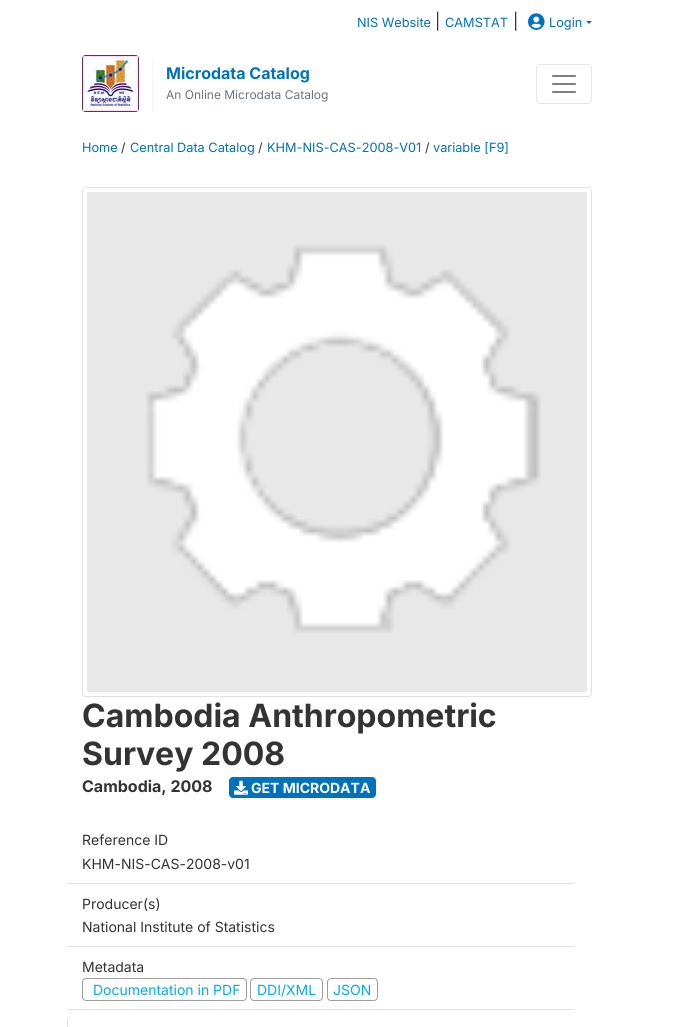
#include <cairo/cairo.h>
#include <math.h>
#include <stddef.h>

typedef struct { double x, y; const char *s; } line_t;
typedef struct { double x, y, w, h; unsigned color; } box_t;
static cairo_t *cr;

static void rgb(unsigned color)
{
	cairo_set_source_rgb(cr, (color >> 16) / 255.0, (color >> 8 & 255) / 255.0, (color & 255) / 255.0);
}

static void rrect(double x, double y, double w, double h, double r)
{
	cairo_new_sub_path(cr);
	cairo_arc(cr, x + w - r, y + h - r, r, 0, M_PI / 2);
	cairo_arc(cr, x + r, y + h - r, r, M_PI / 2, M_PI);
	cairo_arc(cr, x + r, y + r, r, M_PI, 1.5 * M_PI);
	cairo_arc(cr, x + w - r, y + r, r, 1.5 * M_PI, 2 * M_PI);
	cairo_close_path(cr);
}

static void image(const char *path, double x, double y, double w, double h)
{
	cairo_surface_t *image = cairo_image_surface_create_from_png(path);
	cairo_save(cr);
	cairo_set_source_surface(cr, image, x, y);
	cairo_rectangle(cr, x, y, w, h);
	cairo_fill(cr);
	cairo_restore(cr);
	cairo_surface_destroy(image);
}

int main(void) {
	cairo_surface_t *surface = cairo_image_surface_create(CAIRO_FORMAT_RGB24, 674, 1027);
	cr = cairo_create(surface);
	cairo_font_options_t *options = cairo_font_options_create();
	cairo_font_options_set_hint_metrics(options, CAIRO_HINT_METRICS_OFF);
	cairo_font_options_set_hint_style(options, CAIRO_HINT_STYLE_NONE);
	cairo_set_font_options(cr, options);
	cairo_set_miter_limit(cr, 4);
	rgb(0xffffff);
	cairo_paint(cr);
	image("img/1.png", 528, 13, 17, 17);
	rgb(0x0071bd);
	cairo_new_path(cr);
	cairo_move_to(cr, 586, 21);
	cairo_line_to(cr, 592, 21);
	cairo_line_to(cr, 589, 24);
	cairo_close_path(cr);
	cairo_fill(cr);
	image("img/2.png", 82, 55, 57, 57);
	rgb(0xf3f5f7);
	cairo_rectangle(cr, 152, 60, 1, 52);
	cairo_fill(cr);
	rrect(536.5, 64.5, 55, 39, 3.5);
	rgb(0xe6e6e6);
	cairo_set_line_width(cr, 1);
	cairo_stroke(cr);
	image("img/3.png", 552, 75, 24, 18);
	rrect(82.5, 187.5, 509, 509, 3.5);
	rgb(0xdee2e6);
	cairo_stroke(cr);
	image("img/4.png", 87, 192, 500, 500);
	rgb(0x0071bd);
	rrect(229, 777, 147, 21, 4);
	cairo_fill(cr);
	image("img/5.png", 234, 780, 14, 15);
	{
		static const box_t items[] = {
			{67, 883, 507, 1, 0xdee2e6},
			{67, 946, 507, 1, 0xdee2e6},
			{67, 1009, 507, 1, 0xdee2e6},
		};
		for (size_t i = 0; i < sizeof items / sizeof *items; i++) {
			rgb(items[i].color);
			cairo_rectangle(cr, items[i].x, items[i].y, items[i].w, items[i].h);
			cairo_fill(cr);
		}
	}
	rrect(82.5, 978.5, 164, 22, 3.5);
	rgb(0x9e9e9e);
	cairo_stroke(cr);
	rrect(250.5, 978.5, 72, 22, 3.5);
	cairo_stroke(cr);
	rrect(327.5, 978.5, 50, 22, 3.5);
	cairo_stroke(cr);
	rgb(0xdee2e6);
	cairo_rectangle(cr, 67, 1018, 1, 9);
	cairo_fill(cr);
	cairo_select_font_face(cr, "Inter", CAIRO_FONT_SLANT_NORMAL, CAIRO_FONT_WEIGHT_NORMAL);
	cairo_set_font_size(cr, 12.75);
	rgb(0x0071bd);
	cairo_move_to(cr, 357, 27);
	cairo_show_text(cr, "NIS Website");
	cairo_set_font_size(cr, 16);
	rgb(0x333333);
	cairo_move_to(cr, 435, 27);
	cairo_show_text(cr, "|");
	cairo_set_font_size(cr, 12.75);
	rgb(0x0071bd);
	cairo_move_to(cr, 445, 27);
	cairo_show_text(cr, "CAMSTAT");
	cairo_set_font_size(cr, 16);
	rgb(0x333333);
	cairo_move_to(cr, 513, 27);
	cairo_show_text(cr, "|");
	cairo_set_font_size(cr, 12.75);
	rgb(0x0071bd);
	cairo_move_to(cr, 549, 27);
	cairo_show_text(cr, "Login");
	cairo_select_font_face(cr, "Inter", CAIRO_FONT_SLANT_NORMAL, CAIRO_FONT_WEIGHT_BOLD);
	cairo_set_font_size(cr, 16);
	cairo_move_to(cr, 166, 79);
	cairo_show_text(cr, "Microdata Catalog");
	cairo_select_font_face(cr, "Inter", CAIRO_FONT_SLANT_NORMAL, CAIRO_FONT_WEIGHT_NORMAL);
	cairo_set_font_size(cr, 12);
	rgb(0x6c757d);
	cairo_move_to(cr, 166, 99);
	cairo_show_text(cr, "An Online Microdata Catalog");
	cairo_set_font_size(cr, 12.75);
	rgb(0x0071bd);
	cairo_move_to(cr, 82, 152);
	cairo_show_text(cr, "Home");
	rgb(0x333333);
	cairo_move_to(cr, 121, 152);
	cairo_show_text(cr, "/");
	rgb(0x0071bd);
	cairo_move_to(cr, 130, 152);
	cairo_show_text(cr, "Central Data Catalog");
	rgb(0x333333);
	cairo_move_to(cr, 258, 152);
	cairo_show_text(cr, "/");
	rgb(0x0071bd);
	cairo_move_to(cr, 267, 152);
	cairo_show_text(cr, "KHM-NIS-CAS-2008-V01");
	rgb(0x333333);
	cairo_move_to(cr, 425, 152);
	cairo_show_text(cr, "/");
	rgb(0x0071bd);
	cairo_move_to(cr, 433, 152);
	cairo_show_text(cr, "variable [F9]");
	cairo_select_font_face(cr, "Inter", CAIRO_FONT_SLANT_NORMAL, CAIRO_FONT_WEIGHT_BOLD);
	cairo_set_font_size(cr, 32);
	rgb(0x333333);
	cairo_move_to(cr, 82, 727);
	cairo_show_text(cr, "Cambodia Anthropometric");
	cairo_move_to(cr, 82, 765);
	cairo_show_text(cr, "Survey 2008");
	cairo_set_font_size(cr, 16);
	cairo_move_to(cr, 82, 792);
	cairo_show_text(cr, "Cambodia, 2008");
	cairo_set_font_size(cr, 14);
	rgb(0xffffff);
	cairo_move_to(cr, 251, 793);
	cairo_show_text(cr, "GET MICRODATA");
	cairo_select_font_face(cr, "Inter", CAIRO_FONT_SLANT_NORMAL, CAIRO_FONT_WEIGHT_NORMAL);
	rgb(0x333333);
	{
		static const line_t items[] = {
			{82, 845, "Reference ID"},
			{82, 869, "KHM-NIS-CAS-2008-v01"},
			{82, 909, "Producer(s)"},
			{82, 932, "National Institute of Statistics"},
			{82, 972, "Metadata"},
		};
		for (size_t i = 0; i < sizeof items / sizeof *items; i++) {
			cairo_move_to(cr, items[i].x, items[i].y);
			cairo_show_text(cr, items[i].s);
		}
	}
	rgb(0x03a9f4);
	{
		static const line_t items[] = {
			{93, 995, "Documentation in PDF"},
			{257, 995, "DDI/XML"},
			{333, 995, "JSON"},
		};
		for (size_t i = 0; i < sizeof items / sizeof *items; i++) {
			cairo_move_to(cr, items[i].x, items[i].y);
			cairo_show_text(cr, items[i].s);
		}
	}
	cairo_surface_write_to_png(surface, "page.png");
	cairo_font_options_destroy(options);
	cairo_destroy(cr);
	cairo_surface_destroy(surface);
	return 0;
}
